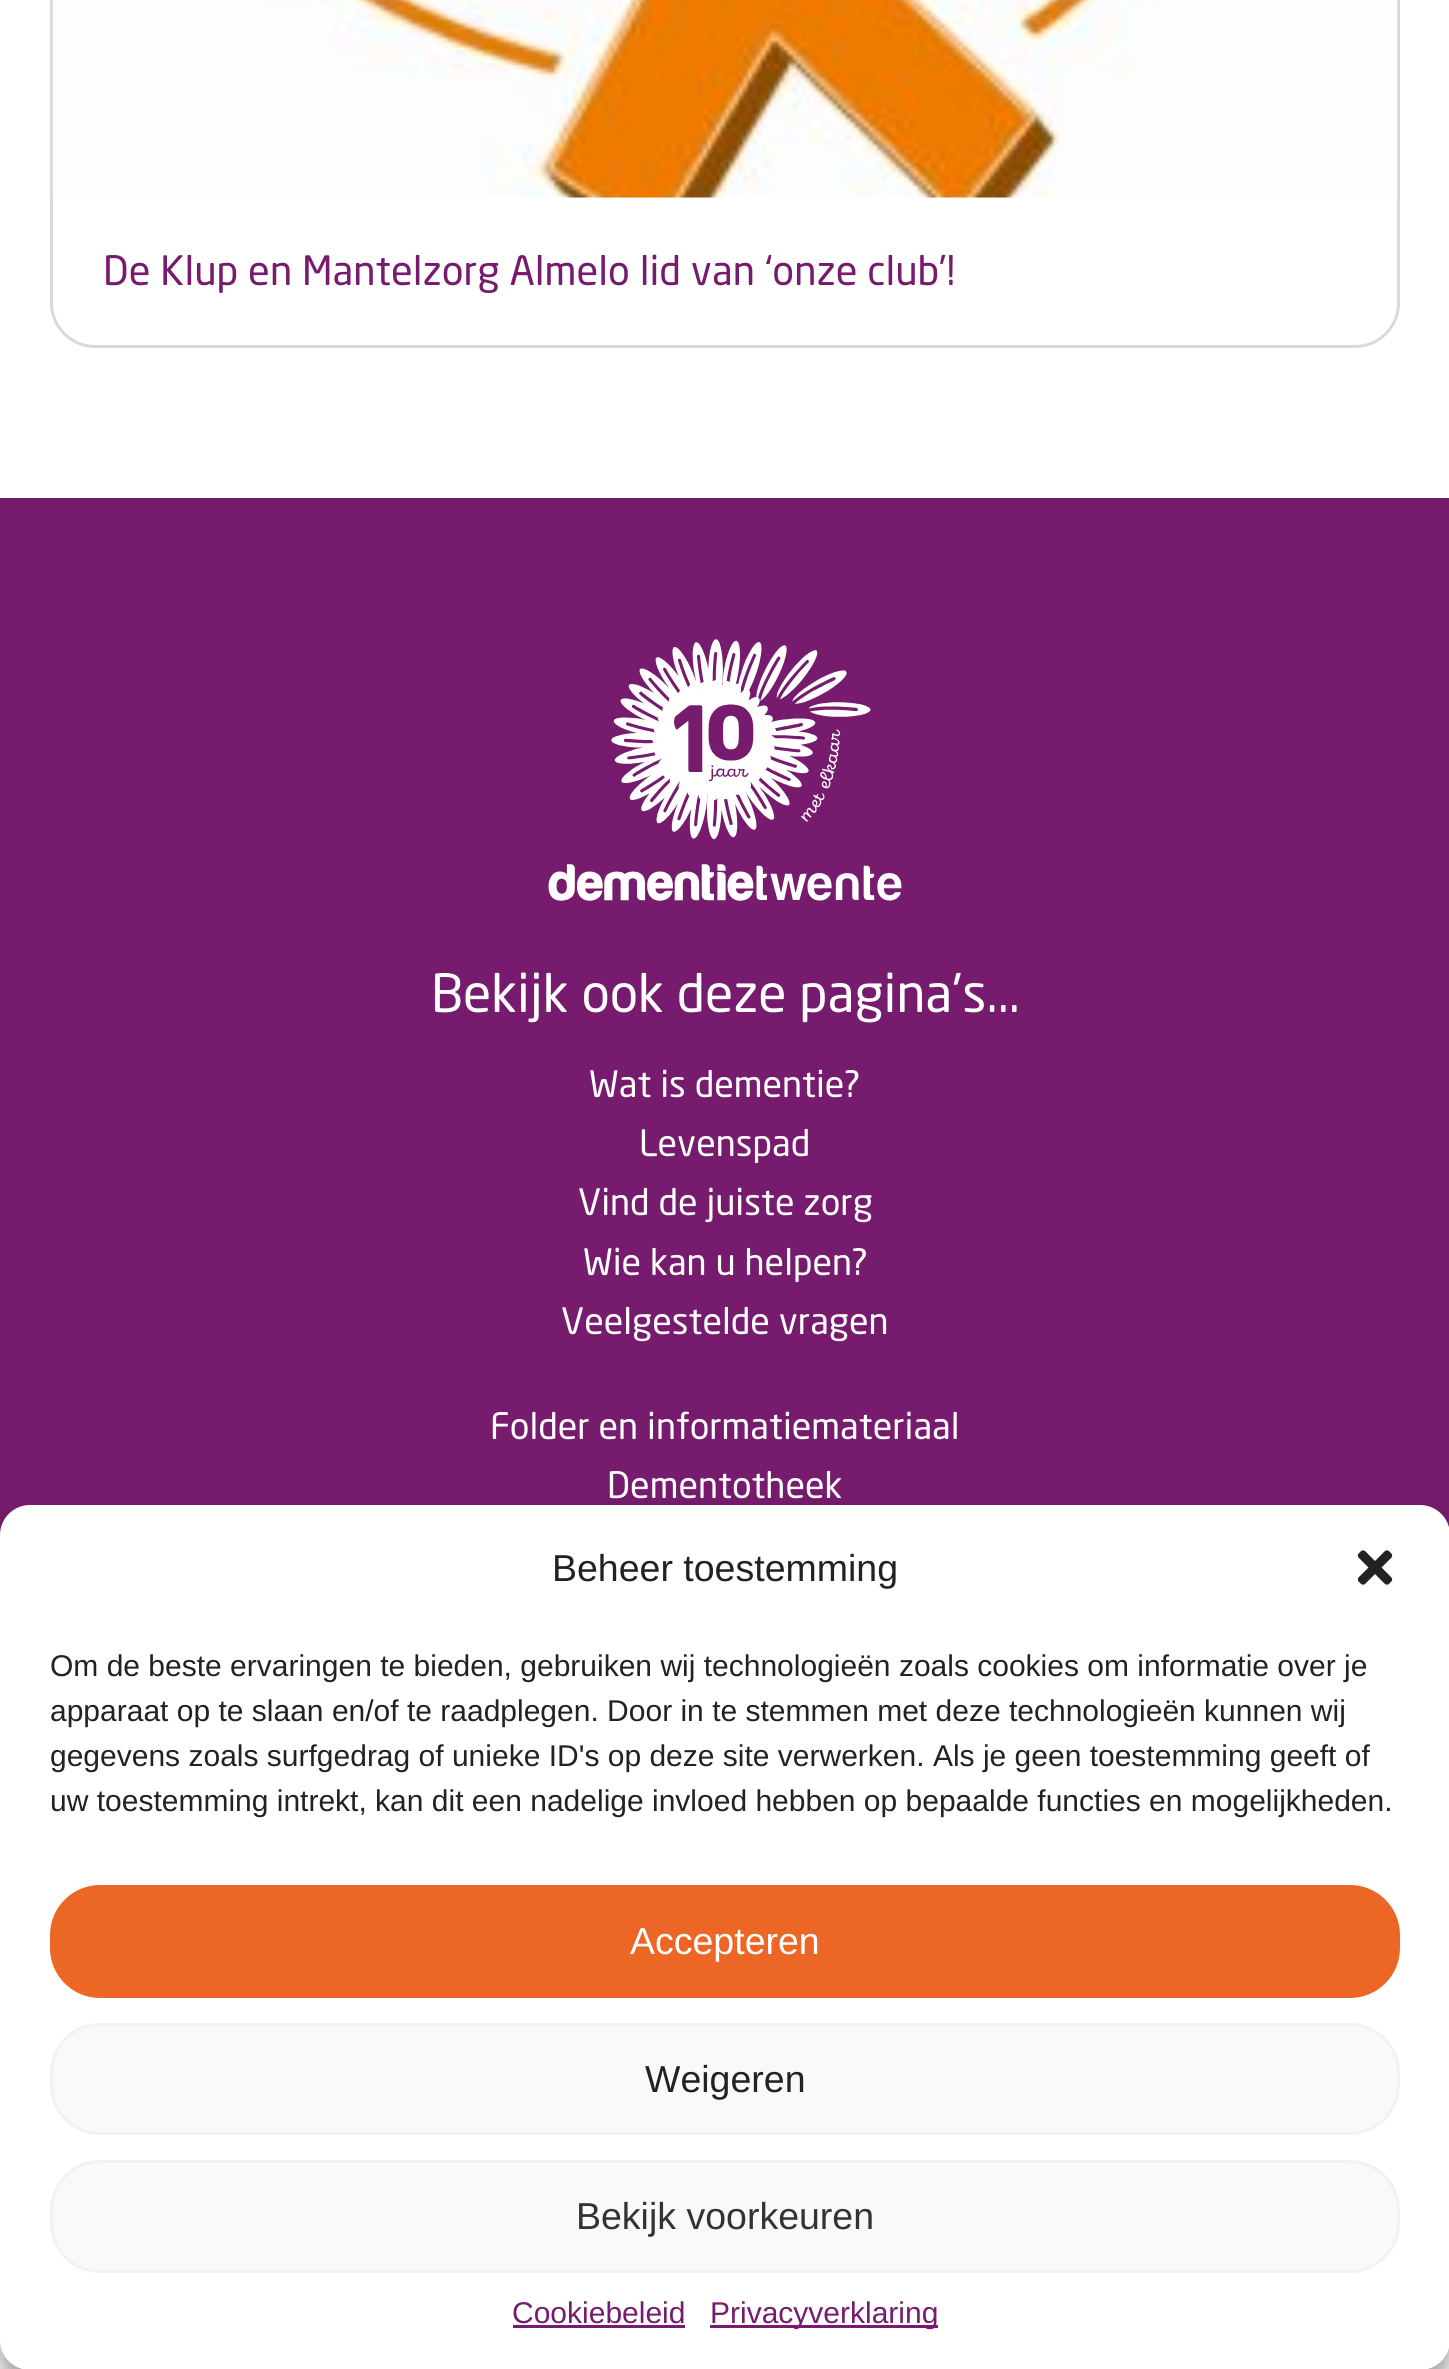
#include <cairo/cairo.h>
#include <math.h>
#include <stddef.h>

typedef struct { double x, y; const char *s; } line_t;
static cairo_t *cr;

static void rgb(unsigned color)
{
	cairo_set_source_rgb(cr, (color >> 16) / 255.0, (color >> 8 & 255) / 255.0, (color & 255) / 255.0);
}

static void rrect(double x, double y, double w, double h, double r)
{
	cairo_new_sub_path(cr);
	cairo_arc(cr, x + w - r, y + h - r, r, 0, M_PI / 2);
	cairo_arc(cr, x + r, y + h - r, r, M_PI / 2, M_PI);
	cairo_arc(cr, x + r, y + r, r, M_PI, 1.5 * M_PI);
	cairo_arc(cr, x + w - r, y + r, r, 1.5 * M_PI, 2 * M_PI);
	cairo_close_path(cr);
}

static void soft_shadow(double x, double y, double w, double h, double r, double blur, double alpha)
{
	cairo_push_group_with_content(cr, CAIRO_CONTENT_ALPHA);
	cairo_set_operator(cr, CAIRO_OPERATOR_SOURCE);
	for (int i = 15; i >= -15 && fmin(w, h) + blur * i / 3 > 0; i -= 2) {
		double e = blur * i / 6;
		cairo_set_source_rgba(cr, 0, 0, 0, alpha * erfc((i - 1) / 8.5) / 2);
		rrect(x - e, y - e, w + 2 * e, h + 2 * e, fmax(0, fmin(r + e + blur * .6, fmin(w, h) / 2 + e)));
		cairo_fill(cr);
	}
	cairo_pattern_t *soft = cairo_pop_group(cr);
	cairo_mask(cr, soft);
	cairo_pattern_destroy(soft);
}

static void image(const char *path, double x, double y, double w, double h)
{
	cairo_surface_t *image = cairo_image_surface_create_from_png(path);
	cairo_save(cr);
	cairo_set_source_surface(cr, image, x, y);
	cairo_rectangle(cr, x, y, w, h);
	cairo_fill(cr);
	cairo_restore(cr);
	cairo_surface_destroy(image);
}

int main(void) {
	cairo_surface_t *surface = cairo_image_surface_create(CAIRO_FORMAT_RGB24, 1449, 2369);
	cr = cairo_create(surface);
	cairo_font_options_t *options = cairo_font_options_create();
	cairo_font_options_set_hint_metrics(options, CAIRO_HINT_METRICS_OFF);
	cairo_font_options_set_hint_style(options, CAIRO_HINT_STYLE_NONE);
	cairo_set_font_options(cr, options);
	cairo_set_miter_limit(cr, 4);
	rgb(0xffffff);
	cairo_paint(cr);
	rrect(51.5, -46.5, 1347, 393, 43.5);
	rgb(0xd9d9d9);
	cairo_set_line_width(cr, 3);
	cairo_stroke(cr);
	image("img/1.png", 52, 0, 1346, 198);
	rgb(0x771b6e);
	cairo_rectangle(cr, 0, 498, 1449, 1037);
	cairo_fill(cr);
	image("img/2.png", 548, 639, 354, 262);
	rgb(0x000000);
	soft_shadow(0, 1520, 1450, 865, 30, 7.5, 0.23);
	soft_shadow(0, 1530, 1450, 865, 30, 25, 0.19);
	rgb(0xffffff);
	rrect(0, 1505, 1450, 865, 30);
	cairo_fill(cr);
	image("img/3.png", 1357, 1550, 36, 35);
	rgb(0xec6726);
	rrect(51.5, 1886.5, 1347, 110, 48.5);
	cairo_fill_preserve(cr);
	cairo_stroke(cr);
	rgb(0xf9f9f9);
	rrect(51.5, 2024.5, 1347, 109, 48.5);
	cairo_fill_preserve(cr);
	rgb(0xf2f2f2);
	cairo_stroke(cr);
	rgb(0xf9f9f9);
	rrect(51.5, 2161.5, 1347, 110, 48.5);
	cairo_fill_preserve(cr);
	rgb(0xf2f2f2);
	cairo_stroke(cr);
	rgb(0x771b6e);
	cairo_rectangle(cr, 513, 2325, 172, 3);
	cairo_fill(cr);
	cairo_rectangle(cr, 710, 2325, 228, 3);
	cairo_fill(cr);
	cairo_select_font_face(cr, "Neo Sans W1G", CAIRO_FONT_SLANT_NORMAL, CAIRO_FONT_WEIGHT_NORMAL);
	cairo_set_font_size(cr, 40);
	cairo_move_to(cr, 103, 285);
	cairo_show_text(cr, "De Klup en Mantelzorg Almelo lid van ‘onze club’!");
	cairo_set_font_size(cr, 52);
	rgb(0xffffff);
	cairo_move_to(cr, 431, 1012);
	cairo_show_text(cr, "Bekijk ook deze pagina's...");
	cairo_set_font_size(cr, 36);
	{
		static const line_t items[] = {
			{589, 1097, "Wat is dementie?"},
			{639, 1156, "Levenspad"},
			{578, 1215, "Vind de juiste zorg"},
			{583, 1275, "Wie kan u helpen?"},
			{561, 1334, "Veelgestelde vragen"},
			{490, 1439, "Folder en informatiemateriaal"},
			{607, 1498, "Dementotheek"},
		};
		for (size_t i = 0; i < sizeof items / sizeof *items; i++) {
			cairo_move_to(cr, items[i].x, items[i].y);
			cairo_show_text(cr, items[i].s);
		}
	}
	cairo_select_font_face(cr, "Liberation Sans", CAIRO_FONT_SLANT_NORMAL, CAIRO_FONT_WEIGHT_NORMAL);
	cairo_set_font_size(cr, 37.5);
	rgb(0x222222);
	cairo_move_to(cr, 552, 1581);
	cairo_show_text(cr, "Beheer toestemming");
	cairo_set_font_size(cr, 30);
	{
		static const line_t items[] = {
			{50, 1676, "Om de beste ervaringen te bieden, gebruiken wij technologieën zoals cookies om informatie over je"},
			{50, 1721, "apparaat op te slaan en/of te raadplegen. Door in te stemmen met deze technologieën kunnen wij"},
			{50, 1766, "gegevens zoals surfgedrag of unieke ID's op deze site verwerken. Als je geen toestemming geeft of"},
			{50, 1811, "uw toestemming intrekt, kan dit een nadelige invloed hebben op bepaalde functies en mogelijkheden."},
		};
		for (size_t i = 0; i < sizeof items / sizeof *items; i++) {
			cairo_move_to(cr, items[i].x, items[i].y);
			cairo_show_text(cr, items[i].s);
		}
	}
	cairo_set_font_size(cr, 37.5);
	rgb(0xffffff);
	cairo_move_to(cr, 630, 1954);
	cairo_show_text(cr, "Accepteren");
	rgb(0x222222);
	cairo_move_to(cr, 645, 2092);
	cairo_show_text(cr, "Weigeren");
	rgb(0x333333);
	cairo_move_to(cr, 576, 2229);
	cairo_show_text(cr, "Bekijk voorkeuren");
	cairo_set_font_size(cr, 30);
	rgb(0x771b6e);
	cairo_move_to(cr, 512, 2323);
	cairo_show_text(cr, "Cookiebeleid");
	cairo_move_to(cr, 710, 2323);
	cairo_show_text(cr, "Privacyverklaring");
	cairo_surface_write_to_png(surface, "page.png");
	cairo_font_options_destroy(options);
	cairo_destroy(cr);
	cairo_surface_destroy(surface);
	return 0;
}
